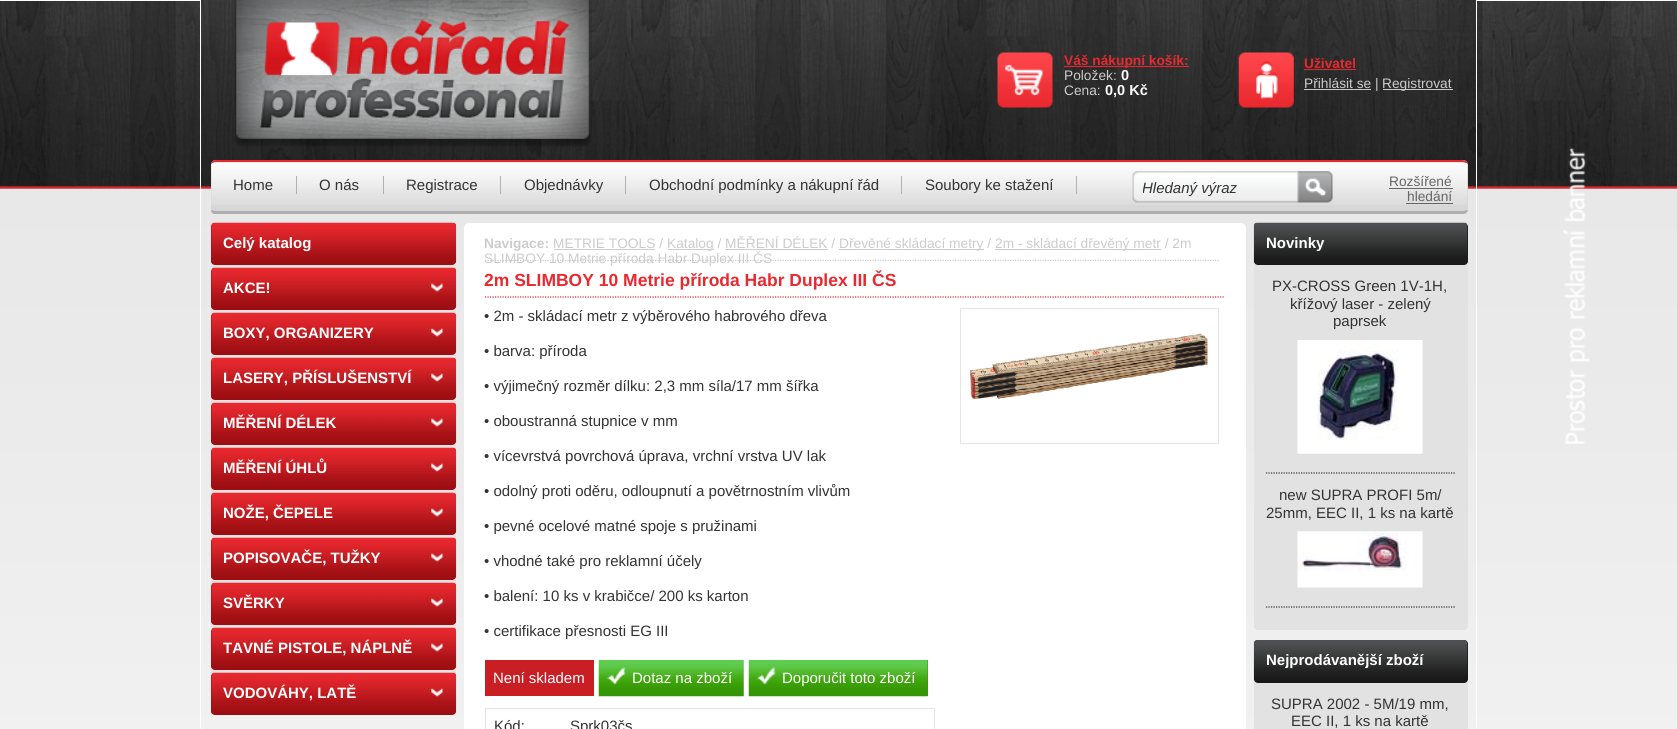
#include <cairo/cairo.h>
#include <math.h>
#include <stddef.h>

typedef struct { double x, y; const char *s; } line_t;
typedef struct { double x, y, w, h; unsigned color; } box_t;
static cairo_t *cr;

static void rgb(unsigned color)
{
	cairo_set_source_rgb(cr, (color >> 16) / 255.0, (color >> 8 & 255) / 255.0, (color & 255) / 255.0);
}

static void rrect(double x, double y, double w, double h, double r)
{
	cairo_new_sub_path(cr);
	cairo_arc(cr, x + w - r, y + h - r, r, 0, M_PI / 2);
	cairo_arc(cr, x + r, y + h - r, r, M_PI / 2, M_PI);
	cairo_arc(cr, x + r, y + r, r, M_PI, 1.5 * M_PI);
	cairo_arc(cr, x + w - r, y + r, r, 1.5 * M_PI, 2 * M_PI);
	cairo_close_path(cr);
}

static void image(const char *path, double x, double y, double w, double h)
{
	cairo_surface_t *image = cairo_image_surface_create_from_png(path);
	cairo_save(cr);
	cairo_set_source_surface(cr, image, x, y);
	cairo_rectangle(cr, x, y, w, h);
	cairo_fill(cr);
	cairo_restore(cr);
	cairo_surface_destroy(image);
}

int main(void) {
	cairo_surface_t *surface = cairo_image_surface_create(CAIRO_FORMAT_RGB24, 1677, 729);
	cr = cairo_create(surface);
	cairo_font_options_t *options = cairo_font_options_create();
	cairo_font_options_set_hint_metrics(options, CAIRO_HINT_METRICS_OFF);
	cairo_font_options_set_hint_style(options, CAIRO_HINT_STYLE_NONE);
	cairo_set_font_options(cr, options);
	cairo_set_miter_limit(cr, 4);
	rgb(0xffffff);
	cairo_paint(cr);
	image("img/1.png", 0, 188, 1677, 541);
	image("img/2.png", 0, 0, 1677, 189);
	cairo_rectangle(cr, -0.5, 0.5, 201, 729);
	rgb(0xffffff);
	cairo_set_line_width(cr, 1);
	cairo_stroke(cr);
	image("img/3.png", 234, 0, 358, 147);
	image("img/4.png", 997, 52, 56, 56);
	rgb(0xe9292f);
	cairo_rectangle(cr, 1064, 66, 125, 1);
	cairo_fill(cr);
	image("img/5.png", 1238, 52, 56, 56);
	{
		static const box_t items[] = {
			{1304, 69, 52, 1, 0xe9292f},
			{1304, 89, 67, 1, 0xcccccc},
			{1383, 89, 70, 1, 0xcccccc},
		};
		for (size_t i = 0; i < sizeof items / sizeof *items; i++) {
			rgb(items[i].color);
			cairo_rectangle(cr, items[i].x, items[i].y, items[i].w, items[i].h);
			cairo_fill(cr);
		}
	}
	rgb(0xd7d7d7);
	rrect(211, 160, 1257, 54, 5);
	cairo_fill(cr);
	image("img/6.png", 211, 162, 1257, 43);
	rgb(0xe7292f);
	cairo_new_path(cr);
	cairo_move_to(cr, 216, 160);
	cairo_curve_to(cr, 213, 160, 211, 162, 211, 164);
	cairo_curve_to(cr, 212, 163, 214, 162, 216, 162);
	cairo_line_to(cr, 1462, 162);
	cairo_curve_to(cr, 1464, 162, 1467, 163, 1468, 164);
	cairo_curve_to(cr, 1468, 161, 1464, 160, 1462, 160);
	cairo_close_path(cr);
	cairo_fill(cr);
	rgb(0xaeaeae);
	cairo_new_path(cr);
	cairo_move_to(cr, 1468, 210);
	cairo_curve_to(cr, 1468, 211, 1466, 214, 1464, 214);
	cairo_line_to(cr, 214, 214);
	cairo_curve_to(cr, 212, 214, 211, 211, 211, 210);
	cairo_curve_to(cr, 212, 210, 214, 211, 216, 211);
	cairo_line_to(cr, 1462, 211);
	cairo_curve_to(cr, 1464, 211, 1467, 210, 1468, 210);
	cairo_close_path(cr);
	cairo_fill(cr);
	{
		static const box_t items[] = {
			{296, 176, 1, 18, 0xb1b1b1},
			{383, 176, 1, 18, 0xb1b1b1},
			{500, 176, 1, 18, 0xb1b1b1},
			{625, 176, 1, 18, 0xb1b1b1},
			{901, 176, 1, 18, 0xb1b1b1},
			{1076, 176, 1, 18, 0xb1b1b1},
		};
		for (size_t i = 0; i < sizeof items / sizeof *items; i++) {
			rgb(items[i].color);
			cairo_rectangle(cr, items[i].x, items[i].y, items[i].w, items[i].h);
			cairo_fill(cr);
		}
	}
	image("img/7.png", 1132, 171, 201, 32);
	rgb(0x666666);
	cairo_rectangle(cr, 1389, 188, 64, 1);
	cairo_fill(cr);
	cairo_rectangle(cr, 1406, 203, 47, 1);
	cairo_fill(cr);
	rgb(0x9d0e12);
	rrect(211, 223, 245, 42, 4);
	cairo_fill(cr);
	image("img/8.png", 211, 222, 246, 41);
	rgb(0xe3e2e2);
	cairo_rectangle(cr, 211, 265, 245, 450);
	cairo_fill(cr);
	rgb(0x9d0e12);
	rrect(211, 268, 245, 42, 4);
	cairo_fill(cr);
	image("img/9.png", 211, 267, 246, 41);
	image("img/10.png", 431, 283, 12, 9);
	rrect(211, 313, 245, 42, 4);
	cairo_fill(cr);
	image("img/11.png", 211, 312, 246, 41);
	image("img/12.png", 431, 328, 12, 9);
	rrect(211, 358, 245, 42, 4);
	cairo_fill(cr);
	image("img/13.png", 211, 357, 246, 41);
	image("img/10.png", 431, 373, 12, 9);
	rrect(211, 403, 245, 42, 4);
	cairo_fill(cr);
	image("img/14.png", 211, 402, 246, 41);
	image("img/10.png", 431, 418, 12, 9);
	rrect(211, 448, 245, 42, 4);
	cairo_fill(cr);
	image("img/15.png", 211, 447, 246, 41);
	image("img/10.png", 431, 463, 12, 9);
	rrect(211, 493, 245, 42, 4);
	cairo_fill(cr);
	image("img/16.png", 211, 492, 246, 41);
	image("img/10.png", 431, 508, 12, 9);
	rrect(211, 538, 245, 42, 4);
	cairo_fill(cr);
	image("img/17.png", 211, 537, 246, 41);
	image("img/10.png", 431, 553, 12, 9);
	rrect(211, 583, 245, 42, 4);
	cairo_fill(cr);
	image("img/18.png", 211, 582, 246, 41);
	image("img/10.png", 431, 598, 12, 9);
	rrect(211, 628, 245, 42, 4);
	cairo_fill(cr);
	image("img/19.png", 211, 627, 246, 41);
	image("img/20.png", 431, 643, 12, 9);
	rrect(211, 673, 245, 42, 4);
	cairo_fill(cr);
	image("img/21.png", 211, 672, 246, 41);
	image("img/10.png", 431, 688, 12, 9);
	rgb(0xffffff);
	rrect(464, 223, 782, 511, 5);
	cairo_fill(cr);
	cairo_new_path(cr);
	cairo_move_to(cr, 485, 260.5);
	cairo_line_to(cr, 1219, 260.5);
	rgb(0xcccccc);
	cairo_set_line_width(cr, 1.2);
	cairo_set_dash(cr, (double[]){1.25, 1.25}, 2, 0);
	cairo_stroke(cr);
	{
		static const box_t items[] = {
			{554, 249, 101, 1, 0xcccccc},
			{668, 249, 46, 1, 0xcccccc},
			{839, 249, 145, 1, 0xcccccc},
			{995, 249, 166, 1, 0xcccccc},
			{725, 249, 103, 1, 0xcccccc},
		};
		for (size_t i = 0; i < sizeof items / sizeof *items; i++) {
			rgb(items[i].color);
			cairo_rectangle(cr, items[i].x, items[i].y, items[i].w, items[i].h);
			cairo_fill(cr);
		}
	}
	cairo_new_path(cr);
	cairo_move_to(cr, 485, 297);
	cairo_line_to(cr, 1225, 297);
	rgb(0xe9292f);
	cairo_stroke(cr);
	rgb(0xc91e24);
	cairo_rectangle(cr, 485, 660, 109, 36);
	cairo_fill(cr);
	image("img/22.png", 598, 660, 146, 37);
	rgb(0x359406);
	cairo_rectangle(cr, 927, 660, 1, 36);
	cairo_fill(cr);
	image("img/23.png", 748, 660, 180, 37);
	cairo_rectangle(cr, 485.5, 708.5, 449, 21);
	rgb(0xe7e4e4);
	cairo_set_line_width(cr, 1);
	cairo_set_dash(cr, NULL, 0, 0);
	cairo_stroke(cr);
	cairo_rectangle(cr, 960.5, 308.5, 258, 135);
	cairo_stroke(cr);
	image("img/24.png", 970, 333, 238, 66);
	rgb(0xe3e2e2);
	rrect(1254, 223, 214, 407, 4);
	cairo_fill(cr);
	rgb(0x191919);
	rrect(1254, 223, 214, 42, 4);
	cairo_fill(cr);
	image("img/25.png", 1253, 222, 215, 41);
	cairo_new_path(cr);
	cairo_move_to(cr, 1266, 473);
	cairo_line_to(cr, 1455, 473);
	rgb(0x333333);
	cairo_set_line_width(cr, 1.2);
	cairo_set_dash(cr, (double[]){1.25, 1.25}, 2, 0);
	cairo_stroke(cr);
	image("img/26.png", 1297, 340, 126, 114);
	cairo_new_path(cr);
	cairo_move_to(cr, 1266, 607);
	cairo_line_to(cr, 1455, 607);
	cairo_stroke(cr);
	image("img/27.png", 1297, 531, 126, 57);
	rgb(0xe3e2e2);
	rrect(1254, 640, 214, 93, 4);
	cairo_fill(cr);
	rgb(0x191919);
	rrect(1254, 640, 214, 43, 4);
	cairo_fill(cr);
	image("img/28.png", 1253, 640, 215, 40);
	cairo_rectangle(cr, 1476.5, 0.5, 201, 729);
	rgb(0xffffff);
	cairo_set_line_width(cr, 1);
	cairo_set_dash(cr, NULL, 0, 0);
	cairo_stroke(cr);
	image("img/29.png", 1563, 147, 27, 297);
	cairo_select_font_face(cr, "Liberation Sans", CAIRO_FONT_SLANT_NORMAL, CAIRO_FONT_WEIGHT_BOLD);
	cairo_set_font_size(cr, 13.75);
	rgb(0xe9292f);
	cairo_move_to(cr, 1064, 65);
	cairo_show_text(cr, "Váš nákupní košík:");
	cairo_select_font_face(cr, "Liberation Sans", CAIRO_FONT_SLANT_NORMAL, CAIRO_FONT_WEIGHT_NORMAL);
	rgb(0xcccccc);
	cairo_move_to(cr, 1064, 80);
	cairo_show_text(cr, "Položek:");
	cairo_select_font_face(cr, "Liberation Sans", CAIRO_FONT_SLANT_NORMAL, CAIRO_FONT_WEIGHT_BOLD);
	cairo_set_font_size(cr, 14.5);
	rgb(0xffffff);
	cairo_move_to(cr, 1121, 80);
	cairo_show_text(cr, "0");
	cairo_select_font_face(cr, "Liberation Sans", CAIRO_FONT_SLANT_NORMAL, CAIRO_FONT_WEIGHT_NORMAL);
	cairo_set_font_size(cr, 13.75);
	rgb(0xcccccc);
	cairo_move_to(cr, 1064, 95);
	cairo_show_text(cr, "Cena:");
	cairo_select_font_face(cr, "Liberation Sans", CAIRO_FONT_SLANT_NORMAL, CAIRO_FONT_WEIGHT_BOLD);
	cairo_set_font_size(cr, 14.5);
	rgb(0xffffff);
	cairo_move_to(cr, 1105, 95);
	cairo_show_text(cr, "0,0 Kč");
	cairo_set_font_size(cr, 13.75);
	rgb(0xe9292f);
	cairo_move_to(cr, 1304, 68);
	cairo_show_text(cr, "Uživatel");
	cairo_select_font_face(cr, "Liberation Sans", CAIRO_FONT_SLANT_NORMAL, CAIRO_FONT_WEIGHT_NORMAL);
	rgb(0xcccccc);
	cairo_move_to(cr, 1304, 88);
	cairo_show_text(cr, "Přihlásit se |");
	cairo_move_to(cr, 1382, 88);
	cairo_show_text(cr, "Registrovat");
	cairo_set_font_size(cr, 15);
	rgb(0x333333);
	{
		static const line_t items[] = {
			{233, 190, "Home"},
			{319, 190, "O nás"},
			{406, 190, "Registrace"},
			{524, 190, "Objednávky"},
			{649, 190, "Obchodní podmínky a nákupní řád"},
			{925, 190, "Soubory ke stažení"},
		};
		for (size_t i = 0; i < sizeof items / sizeof *items; i++) {
			cairo_move_to(cr, items[i].x, items[i].y);
			cairo_show_text(cr, items[i].s);
		}
	}
	cairo_save(cr);
	cairo_rectangle(cr, 1143, 180, 150, 18);
	cairo_clip(cr);
	cairo_select_font_face(cr, "Liberation Sans", CAIRO_FONT_SLANT_ITALIC, CAIRO_FONT_WEIGHT_NORMAL);
	cairo_move_to(cr, 1142, 193);
	cairo_show_text(cr, "Hledaný výraz");
	cairo_restore(cr);
	cairo_set_font_size(cr, 13.75);
	rgb(0x666666);
	cairo_move_to(cr, 1389, 186);
	cairo_show_text(cr, "Rozšířené");
	cairo_move_to(cr, 1407, 201);
	cairo_show_text(cr, "hledání");
	cairo_select_font_face(cr, "Liberation Sans", CAIRO_FONT_SLANT_NORMAL, CAIRO_FONT_WEIGHT_BOLD);
	cairo_set_font_size(cr, 15);
	rgb(0xffffff);
	{
		static const line_t items[] = {
			{223, 248, "Celý katalog"},
			{223, 293, "AKCE!"},
			{223, 338, "BOXY, ORGANIZERY"},
			{223, 383, "LASERY, PŘÍSLUŠENSTVÍ"},
			{223, 428, "MĚŘENÍ DÉLEK"},
			{223, 473, "MĚŘENÍ ÚHLŮ"},
			{223, 518, "NOŽE, ČEPELE"},
			{223, 563, "POPISOVAČE, TUŽKY"},
			{223, 608, "SVĚRKY"},
			{223, 653, "TAVNÉ PISTOLE, NÁPLNĚ"},
			{223, 698, "VODOVÁHY, LATĚ"},
		};
		for (size_t i = 0; i < sizeof items / sizeof *items; i++) {
			cairo_move_to(cr, items[i].x, items[i].y);
			cairo_show_text(cr, items[i].s);
		}
	}
	cairo_set_font_size(cr, 13.75);
	rgb(0xcccccc);
	cairo_move_to(cr, 484, 248);
	cairo_show_text(cr, "Navigace:");
	cairo_select_font_face(cr, "Liberation Sans", CAIRO_FONT_SLANT_NORMAL, CAIRO_FONT_WEIGHT_NORMAL);
	{
		static const line_t items[] = {
			{553, 248, "METRIE TOOLS /"},
			{667, 248, "Katalog / MĚŘENÍ DÉLEK /"},
			{839, 248, "Dřevěné skládací metry /"},
			{995, 248, "2m - skládací dřevěný metr / 2m"},
			{484, 263, "SLIMBOY 10 Metrie příroda Habr Duplex III ČS"},
		};
		for (size_t i = 0; i < sizeof items / sizeof *items; i++) {
			cairo_move_to(cr, items[i].x, items[i].y);
			cairo_show_text(cr, items[i].s);
		}
	}
	cairo_select_font_face(cr, "Liberation Sans", CAIRO_FONT_SLANT_NORMAL, CAIRO_FONT_WEIGHT_BOLD);
	cairo_set_font_size(cr, 17.5);
	rgb(0xe9292f);
	cairo_move_to(cr, 484, 286);
	cairo_show_text(cr, "2m SLIMBOY 10 Metrie příroda Habr Duplex III ČS");
	cairo_select_font_face(cr, "Liberation Sans", CAIRO_FONT_SLANT_NORMAL, CAIRO_FONT_WEIGHT_NORMAL);
	cairo_set_font_size(cr, 15);
	rgb(0x333333);
	{
		static const line_t items[] = {
			{484, 321, "• 2m - skládací metr z výběrového habrového dřeva"},
			{484, 356, "• barva: příroda"},
			{484, 391, "• výjimečný rozměr dílku: 2,3 mm síla/17 mm šířka"},
			{484, 426, "• oboustranná stupnice v mm"},
			{484, 461, "• vícevrstvá povrchová úprava, vrchní vrstva UV lak"},
			{484, 496, "• odolný proti oděru, odloupnutí a povětrnostním vlivům"},
			{484, 531, "• pevné ocelové matné spoje s pružinami"},
			{484, 566, "• vhodné také pro reklamní účely"},
			{484, 601, "• balení: 10 ks v krabičce/ 200 ks karton"},
			{484, 636, "• certifikace přesnosti EG III"},
		};
		for (size_t i = 0; i < sizeof items / sizeof *items; i++) {
			cairo_move_to(cr, items[i].x, items[i].y);
			cairo_show_text(cr, items[i].s);
		}
	}
	rgb(0xffffff);
	{
		static const line_t items[] = {
			{493, 683, "Není skladem"},
			{632, 683, "Dotaz na zboží"},
			{782, 683, "Doporučit toto zboží"},
		};
		for (size_t i = 0; i < sizeof items / sizeof *items; i++) {
			cairo_move_to(cr, items[i].x, items[i].y);
			cairo_show_text(cr, items[i].s);
		}
	}
	rgb(0x333333);
	cairo_move_to(cr, 494, 731);
	cairo_show_text(cr, "Kód:");
	cairo_move_to(cr, 570, 731);
	cairo_show_text(cr, "Sprk03čs");
	cairo_select_font_face(cr, "Liberation Sans", CAIRO_FONT_SLANT_NORMAL, CAIRO_FONT_WEIGHT_BOLD);
	rgb(0xffffff);
	cairo_move_to(cr, 1266, 248);
	cairo_show_text(cr, "Novinky");
	cairo_select_font_face(cr, "Liberation Sans", CAIRO_FONT_SLANT_NORMAL, CAIRO_FONT_WEIGHT_NORMAL);
	rgb(0x333333);
	{
		static const line_t items[] = {
			{1272, 291, "PX-CROSS Green 1V-1H,"},
			{1290, 309, "křížový laser - zelený"},
			{1333, 326, "paprsek"},
			{1279, 500, "new SUPRA PROFI 5m/"},
			{1266, 518, "25mm, EEC II, 1 ks na kartě"},
		};
		for (size_t i = 0; i < sizeof items / sizeof *items; i++) {
			cairo_move_to(cr, items[i].x, items[i].y);
			cairo_show_text(cr, items[i].s);
		}
	}
	cairo_select_font_face(cr, "Liberation Sans", CAIRO_FONT_SLANT_NORMAL, CAIRO_FONT_WEIGHT_BOLD);
	rgb(0xffffff);
	cairo_move_to(cr, 1266, 665);
	cairo_show_text(cr, "Nejprodávanější zboží");
	cairo_select_font_face(cr, "Liberation Sans", CAIRO_FONT_SLANT_NORMAL, CAIRO_FONT_WEIGHT_NORMAL);
	rgb(0x333333);
	cairo_move_to(cr, 1271, 709);
	cairo_show_text(cr, "SUPRA 2002 - 5M/19 mm,");
	cairo_move_to(cr, 1291, 726);
	cairo_show_text(cr, "EEC II, 1 ks na kartě");
	cairo_surface_write_to_png(surface, "page.png");
	cairo_font_options_destroy(options);
	cairo_destroy(cr);
	cairo_surface_destroy(surface);
	return 0;
}
